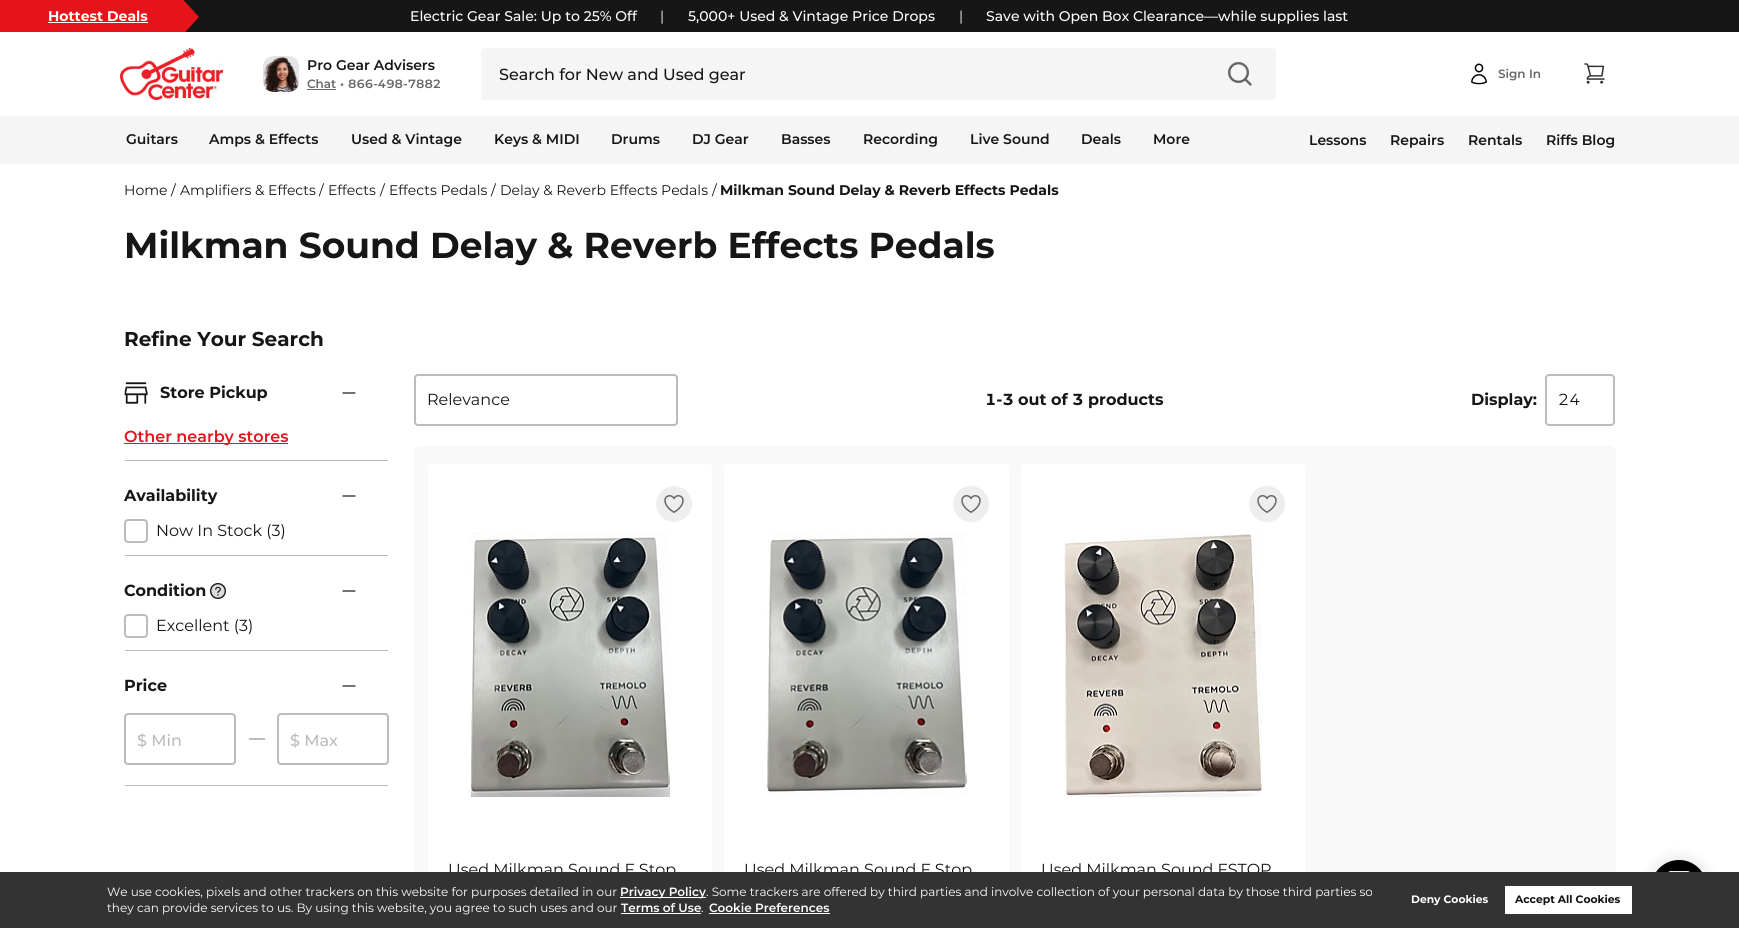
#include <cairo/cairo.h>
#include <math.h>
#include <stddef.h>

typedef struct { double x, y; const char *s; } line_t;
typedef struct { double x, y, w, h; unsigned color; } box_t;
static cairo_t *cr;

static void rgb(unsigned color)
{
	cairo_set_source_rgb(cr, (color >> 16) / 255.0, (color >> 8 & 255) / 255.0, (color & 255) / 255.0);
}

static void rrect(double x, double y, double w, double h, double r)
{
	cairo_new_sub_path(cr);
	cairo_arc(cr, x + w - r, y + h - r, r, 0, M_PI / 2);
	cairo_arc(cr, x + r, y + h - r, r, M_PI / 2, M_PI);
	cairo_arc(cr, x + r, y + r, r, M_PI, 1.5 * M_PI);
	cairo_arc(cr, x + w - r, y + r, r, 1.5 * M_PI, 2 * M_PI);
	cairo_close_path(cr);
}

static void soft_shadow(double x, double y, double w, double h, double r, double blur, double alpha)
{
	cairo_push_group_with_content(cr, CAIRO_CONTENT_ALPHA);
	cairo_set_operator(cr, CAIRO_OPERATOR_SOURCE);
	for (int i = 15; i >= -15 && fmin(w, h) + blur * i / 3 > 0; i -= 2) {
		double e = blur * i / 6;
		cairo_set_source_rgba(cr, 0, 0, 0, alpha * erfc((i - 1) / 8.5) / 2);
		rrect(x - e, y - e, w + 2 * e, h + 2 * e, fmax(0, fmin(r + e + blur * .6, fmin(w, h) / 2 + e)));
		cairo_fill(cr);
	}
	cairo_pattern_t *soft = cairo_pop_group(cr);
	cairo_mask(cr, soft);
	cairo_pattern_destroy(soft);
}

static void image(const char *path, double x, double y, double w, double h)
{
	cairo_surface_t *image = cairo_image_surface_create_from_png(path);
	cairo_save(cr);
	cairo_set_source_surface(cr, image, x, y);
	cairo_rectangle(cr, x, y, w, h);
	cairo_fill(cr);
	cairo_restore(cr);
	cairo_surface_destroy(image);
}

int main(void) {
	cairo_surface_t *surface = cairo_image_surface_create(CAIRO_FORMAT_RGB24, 1739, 928);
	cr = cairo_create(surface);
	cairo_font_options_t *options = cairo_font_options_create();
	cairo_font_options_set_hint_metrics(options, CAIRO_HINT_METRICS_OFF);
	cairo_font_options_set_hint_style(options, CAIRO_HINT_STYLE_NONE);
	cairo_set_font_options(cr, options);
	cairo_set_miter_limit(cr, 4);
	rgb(0xffffff);
	cairo_paint(cr);
	{
		static const box_t items[] = {
			{184, 0, 1555, 32, 0x161616},
			{0, 0, 184, 32, 0xe7131a},
			{48, 22, 100, 1, 0xffffff},
		};
		for (size_t i = 0; i < sizeof items / sizeof *items; i++) {
			rgb(items[i].color);
			cairo_rectangle(cr, items[i].x, items[i].y, items[i].w, items[i].h);
			cairo_fill(cr);
		}
	}
	cairo_save(cr);
	cairo_rectangle(cr, 0, 0, 1739, 32);
	cairo_clip(cr);
	rgb(0xe7131a);
	cairo_new_path(cr);
	cairo_move_to(cr, 183, -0.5);
	cairo_line_to(cr, 183, 34.5);
	cairo_line_to(cr, 199, 17);
	cairo_close_path(cr);
	cairo_fill(cr);
	cairo_restore(cr);
	image("img/1.png", 120, 48, 103, 52);
	image("img/2.png", 263, 56, 36, 36);
	rgb(0x676767);
	cairo_rectangle(cr, 307, 89, 29, 1);
	cairo_fill(cr);
	rgb(0xf5f5f5);
	rrect(481, 48, 795, 52, 4);
	cairo_fill(cr);
	image("img/3.png", 1228, 62, 24, 24);
	image("img/4.png", 1471, 63, 16, 22);
	image("img/5.png", 1584, 63, 21, 21);
	cairo_rectangle(cr, 0, 116, 1739, 48);
	cairo_fill(cr);
	rgb(0xbbbbbb);
	cairo_rectangle(cr, 125, 460, 263, 1);
	cairo_fill(cr);
	image("img/6.png", 124, 382, 24, 22);
	cairo_new_path(cr);
	cairo_move_to(cr, 343, 393);
	cairo_line_to(cr, 355, 393);
	rgb(0x161616);
	cairo_set_line_width(cr, 1.2);
	cairo_set_line_cap(cr, CAIRO_LINE_CAP_ROUND);
	cairo_set_line_join(cr, CAIRO_LINE_JOIN_ROUND);
	cairo_stroke(cr);
	rgb(0xe7131a);
	cairo_rectangle(cr, 124, 443, 164, 1);
	cairo_fill(cr);
	rgb(0xbbbbbb);
	cairo_rectangle(cr, 125, 555, 263, 1);
	cairo_fill(cr);
	cairo_new_path(cr);
	cairo_move_to(cr, 343, 496);
	cairo_line_to(cr, 355, 496);
	rgb(0x161616);
	cairo_stroke(cr);
	rrect(125, 520, 22, 22, 3);
	rgb(0xbbbbbb);
	cairo_set_line_width(cr, 2);
	cairo_set_line_cap(cr, CAIRO_LINE_CAP_BUTT);
	cairo_set_line_join(cr, CAIRO_LINE_JOIN_MITER);
	cairo_stroke(cr);
	cairo_rectangle(cr, 125, 650, 263, 1);
	cairo_fill(cr);
	rgb(0xdddddd);
	cairo_arc(cr, 218, 591, 8, 0, 2 * M_PI);
	cairo_fill(cr);
	image("img/7.png", 210, 583, 16, 16);
	cairo_new_path(cr);
	cairo_move_to(cr, 343, 591);
	cairo_line_to(cr, 355, 591);
	rgb(0x161616);
	cairo_set_line_width(cr, 1.2);
	cairo_set_line_cap(cr, CAIRO_LINE_CAP_ROUND);
	cairo_set_line_join(cr, CAIRO_LINE_JOIN_ROUND);
	cairo_stroke(cr);
	rrect(125, 615, 22, 22, 3);
	rgb(0xbbbbbb);
	cairo_set_line_width(cr, 2);
	cairo_set_line_cap(cr, CAIRO_LINE_CAP_BUTT);
	cairo_set_line_join(cr, CAIRO_LINE_JOIN_MITER);
	cairo_stroke(cr);
	cairo_rectangle(cr, 125, 785, 263, 1);
	cairo_fill(cr);
	cairo_new_path(cr);
	cairo_move_to(cr, 343, 686);
	cairo_line_to(cr, 355, 686);
	rgb(0x161616);
	cairo_set_line_width(cr, 1.2);
	cairo_set_line_cap(cr, CAIRO_LINE_CAP_ROUND);
	cairo_set_line_join(cr, CAIRO_LINE_JOIN_ROUND);
	cairo_stroke(cr);
	rrect(125, 714, 110, 50, 3);
	rgb(0xbbbbbb);
	cairo_set_line_width(cr, 2);
	cairo_set_line_cap(cr, CAIRO_LINE_CAP_BUTT);
	cairo_set_line_join(cr, CAIRO_LINE_JOIN_MITER);
	cairo_stroke(cr);
	cairo_rectangle(cr, 249, 738, 16, 2);
	cairo_fill(cr);
	rrect(278, 714, 110, 50, 3);
	cairo_stroke(cr);
	rrect(415, 375, 262, 50, 3);
	cairo_stroke(cr);
	rrect(1546, 375, 68, 50, 3);
	cairo_stroke(cr);
	rgb(0xf9f9f9);
	rrect(414, 446, 1202, 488, 6);
	cairo_fill(cr);
	rgb(0xffffff);
	rrect(428, 464, 284, 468, 4);
	cairo_fill(cr);
	rgb(0xeeeeee);
	cairo_arc(cr, 674, 504, 18, 0, 2 * M_PI);
	cairo_fill(cr);
	image("img/8.png", 664, 495, 20, 18);
	image("img/9.png", 470, 532, 200, 265);
	rgb(0xffffff);
	rrect(724, 464, 285, 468, 4);
	cairo_fill(cr);
	rgb(0xeeeeee);
	cairo_arc(cr, 971, 504, 18, 0, 2 * M_PI);
	cairo_fill(cr);
	image("img/8.png", 961, 495, 20, 18);
	image("img/10.png", 766, 532, 201, 265);
	rgb(0xffffff);
	rrect(1021, 464, 284, 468, 4);
	cairo_fill(cr);
	rgb(0xeeeeee);
	cairo_arc(cr, 1267, 504, 18, 0, 2 * M_PI);
	cairo_fill(cr);
	image("img/8.png", 1257, 495, 20, 18);
	image("img/11.png", 1063, 532, 199, 265);
	rgb(0x000000);
	soft_shadow(1651, 860, 56, 56, 28, 8, 0.13);
	rgb(0x000000);
	cairo_arc(cr, 1679, 888, 28, 0, 2 * M_PI);
	cairo_fill(cr);
	image("img/12.png", 1668, 871, 22, 1);
	cairo_select_font_face(cr, "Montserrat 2", CAIRO_FONT_SLANT_NORMAL, CAIRO_FONT_WEIGHT_BOLD);
	cairo_set_font_size(cr, 14);
	rgb(0xffffff);
	cairo_move_to(cr, 48, 21);
	cairo_show_text(cr, "Hottest Deals");
	cairo_select_font_face(cr, "Montserrat 2 Medium", CAIRO_FONT_SLANT_NORMAL, CAIRO_FONT_WEIGHT_NORMAL);
	cairo_move_to(cr, 410, 21);
	cairo_show_text(cr, "Electric Gear Sale: Up to 25% Off");
	cairo_select_font_face(cr, "Montserrat 2", CAIRO_FONT_SLANT_NORMAL, CAIRO_FONT_WEIGHT_NORMAL);
	cairo_move_to(cr, 660, 21);
	cairo_show_text(cr, "|");
	cairo_select_font_face(cr, "Montserrat 2 Medium", CAIRO_FONT_SLANT_NORMAL, CAIRO_FONT_WEIGHT_NORMAL);
	cairo_move_to(cr, 688, 21);
	cairo_show_text(cr, "5,000+ Used & Vintage Price Drops");
	cairo_select_font_face(cr, "Montserrat 2", CAIRO_FONT_SLANT_NORMAL, CAIRO_FONT_WEIGHT_NORMAL);
	cairo_move_to(cr, 959, 21);
	cairo_show_text(cr, "|");
	cairo_select_font_face(cr, "Montserrat 2 Medium", CAIRO_FONT_SLANT_NORMAL, CAIRO_FONT_WEIGHT_NORMAL);
	cairo_move_to(cr, 986, 21);
	cairo_show_text(cr, "Save with Open Box Clearance—while supplies last");
	cairo_select_font_face(cr, "Montserrat SemiBold", CAIRO_FONT_SLANT_NORMAL, CAIRO_FONT_WEIGHT_NORMAL);
	rgb(0x161616);
	cairo_move_to(cr, 307, 70);
	cairo_show_text(cr, "Pro Gear Advisers");
	cairo_set_font_size(cr, 12);
	rgb(0x676767);
	cairo_move_to(cr, 307, 88);
	cairo_show_text(cr, "Chat");
	cairo_move_to(cr, 340, 88);
	cairo_show_text(cr, "•");
	cairo_select_font_face(cr, "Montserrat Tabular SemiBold", CAIRO_FONT_SLANT_NORMAL, CAIRO_FONT_WEIGHT_NORMAL);
	cairo_move_to(cr, 348, 88);
	cairo_show_text(cr, "866-498-7882");
	cairo_select_font_face(cr, "Montserrat Medium", CAIRO_FONT_SLANT_NORMAL, CAIRO_FONT_WEIGHT_NORMAL);
	cairo_set_font_size(cr, 16);
	rgb(0x161616);
	cairo_move_to(cr, 499, 80);
	cairo_show_text(cr, "Search for New and Used gear");
	cairo_select_font_face(cr, "Montserrat SemiBold", CAIRO_FONT_SLANT_NORMAL, CAIRO_FONT_WEIGHT_NORMAL);
	cairo_set_font_size(cr, 12);
	rgb(0x676767);
	cairo_move_to(cr, 1498, 78);
	cairo_show_text(cr, "Sign In");
	cairo_set_font_size(cr, 14);
	rgb(0x161616);
	{
		static const line_t items[] = {
			{126, 144, "Guitars"},
			{209, 144, "Amps & Effects"},
			{351, 144, "Used & Vintage"},
			{494, 144, "Keys & MIDI"},
			{611, 144, "Drums"},
			{692, 144, "DJ Gear"},
			{781, 144, "Basses"},
			{863, 144, "Recording"},
			{970, 144, "Live Sound"},
			{1081, 144, "Deals"},
			{1153, 144, "More"},
			{1309, 145, "Lessons"},
			{1390, 145, "Repairs"},
			{1468, 145, "Rentals"},
			{1546, 145, "Riffs Blog"},
		};
		for (size_t i = 0; i < sizeof items / sizeof *items; i++) {
			cairo_move_to(cr, items[i].x, items[i].y);
			cairo_show_text(cr, items[i].s);
		}
	}
	cairo_select_font_face(cr, "Montserrat", CAIRO_FONT_SLANT_NORMAL, CAIRO_FONT_WEIGHT_NORMAL);
	{
		static const line_t items[] = {
			{124, 195, "Home"},
			{171, 195, "/"},
			{180, 195, "Amplifiers & Effects"},
			{319, 195, "/"},
			{328, 195, "Effects"},
			{380, 195, "/"},
			{389, 195, "Effects Pedals"},
			{491, 195, "/"},
			{500, 195, "Delay & Reverb Effects Pedals"},
			{712, 195, "/"},
		};
		for (size_t i = 0; i < sizeof items / sizeof *items; i++) {
			cairo_move_to(cr, items[i].x, items[i].y);
			cairo_show_text(cr, items[i].s);
		}
	}
	cairo_select_font_face(cr, "Montserrat", CAIRO_FONT_SLANT_NORMAL, CAIRO_FONT_WEIGHT_BOLD);
	cairo_move_to(cr, 720, 195);
	cairo_show_text(cr, "Milkman Sound Delay & Reverb Effects Pedals");
	cairo_set_font_size(cr, 36);
	cairo_move_to(cr, 124, 258);
	cairo_show_text(cr, "Milkman Sound Delay & Reverb Effects Pedals");
	cairo_set_font_size(cr, 20);
	cairo_move_to(cr, 124, 346);
	cairo_show_text(cr, "Refine Your Search");
	cairo_set_font_size(cr, 16);
	cairo_move_to(cr, 160, 398);
	cairo_show_text(cr, "Store Pickup");
	cairo_select_font_face(cr, "Montserrat SemiBold", CAIRO_FONT_SLANT_NORMAL, CAIRO_FONT_WEIGHT_NORMAL);
	rgb(0xe7131a);
	cairo_move_to(cr, 124, 442);
	cairo_show_text(cr, "Other nearby stores");
	cairo_select_font_face(cr, "Montserrat", CAIRO_FONT_SLANT_NORMAL, CAIRO_FONT_WEIGHT_BOLD);
	rgb(0x161616);
	cairo_move_to(cr, 124, 501);
	cairo_show_text(cr, "Availability");
	cairo_select_font_face(cr, "Montserrat", CAIRO_FONT_SLANT_NORMAL, CAIRO_FONT_WEIGHT_NORMAL);
	cairo_move_to(cr, 156, 536);
	cairo_show_text(cr, "Now In Stock (3)");
	cairo_select_font_face(cr, "Montserrat", CAIRO_FONT_SLANT_NORMAL, CAIRO_FONT_WEIGHT_BOLD);
	cairo_move_to(cr, 124, 596);
	cairo_show_text(cr, "Condition");
	cairo_select_font_face(cr, "Montserrat", CAIRO_FONT_SLANT_NORMAL, CAIRO_FONT_WEIGHT_NORMAL);
	cairo_move_to(cr, 156, 631);
	cairo_show_text(cr, "Excellent (3)");
	cairo_select_font_face(cr, "Montserrat", CAIRO_FONT_SLANT_NORMAL, CAIRO_FONT_WEIGHT_BOLD);
	cairo_move_to(cr, 124, 691);
	cairo_show_text(cr, "Price");
	cairo_select_font_face(cr, "Montserrat Medium", CAIRO_FONT_SLANT_NORMAL, CAIRO_FONT_WEIGHT_NORMAL);
	rgb(0xbbbbbb);
	cairo_move_to(cr, 137, 746);
	cairo_show_text(cr, "$ Min");
	cairo_move_to(cr, 290, 746);
	cairo_show_text(cr, "$ Max");
	cairo_select_font_face(cr, "Montserrat", CAIRO_FONT_SLANT_NORMAL, CAIRO_FONT_WEIGHT_NORMAL);
	rgb(0x161616);
	cairo_move_to(cr, 427, 405);
	cairo_show_text(cr, "Relevance");
	cairo_select_font_face(cr, "Montserrat Tabular", CAIRO_FONT_SLANT_NORMAL, CAIRO_FONT_WEIGHT_BOLD);
	cairo_move_to(cr, 985, 405);
	cairo_show_text(cr, "1-3 out of 3 products");
	cairo_select_font_face(cr, "Montserrat", CAIRO_FONT_SLANT_NORMAL, CAIRO_FONT_WEIGHT_BOLD);
	cairo_move_to(cr, 1471, 405);
	cairo_show_text(cr, "Display:");
	cairo_select_font_face(cr, "Montserrat Tabular", CAIRO_FONT_SLANT_NORMAL, CAIRO_FONT_WEIGHT_NORMAL);
	cairo_move_to(cr, 1558, 405);
	cairo_show_text(cr, "24");
	cairo_select_font_face(cr, "Montserrat", CAIRO_FONT_SLANT_NORMAL, CAIRO_FONT_WEIGHT_NORMAL);
	{
		static const line_t items[] = {
			{448, 875, "Used Milkman Sound F Stop"},
			{744, 875, "Used Milkman Sound F Stop"},
			{1041, 875, "Used Milkman Sound FSTOP"},
		};
		for (size_t i = 0; i < sizeof items / sizeof *items; i++) {
			cairo_move_to(cr, items[i].x, items[i].y);
			cairo_show_text(cr, items[i].s);
		}
	}
	rgb(0x333333);
	cairo_rectangle(cr, 0, 872, 1739, 56);
	cairo_fill(cr);
	cairo_set_font_size(cr, 12);
	rgb(0xffffff);
	cairo_move_to(cr, 107, 896);
	cairo_show_text(cr, "We use cookies, pixels and other trackers on this website for purposes detailed in our");
	cairo_rectangle(cr, 620, 897, 86, 1);
	cairo_fill(cr);
	cairo_select_font_face(cr, "Montserrat SemiBold", CAIRO_FONT_SLANT_NORMAL, CAIRO_FONT_WEIGHT_NORMAL);
	cairo_move_to(cr, 620, 896);
	cairo_show_text(cr, "Privacy Policy");
	cairo_select_font_face(cr, "Montserrat", CAIRO_FONT_SLANT_NORMAL, CAIRO_FONT_WEIGHT_NORMAL);
	cairo_move_to(cr, 706, 896);
	cairo_show_text(cr, ". Some trackers are offered by third parties and involve collection of your personal data by those third parties so");
	cairo_move_to(cr, 107, 912);
	cairo_show_text(cr, "they can provide services to us. By using this website, you agree to such uses and our");
	cairo_select_font_face(cr, "Montserrat SemiBold", CAIRO_FONT_SLANT_NORMAL, CAIRO_FONT_WEIGHT_NORMAL);
	cairo_move_to(cr, 621, 912);
	cairo_show_text(cr, "Terms of Use");
	cairo_rectangle(cr, 621, 913, 80, 1);
	cairo_fill(cr);
	cairo_select_font_face(cr, "Montserrat", CAIRO_FONT_SLANT_NORMAL, CAIRO_FONT_WEIGHT_NORMAL);
	cairo_move_to(cr, 701, 912);
	cairo_show_text(cr, ".");
	cairo_select_font_face(cr, "Montserrat SemiBold", CAIRO_FONT_SLANT_NORMAL, CAIRO_FONT_WEIGHT_NORMAL);
	cairo_move_to(cr, 709, 912);
	cairo_show_text(cr, "Cookie Preferences");
	cairo_rectangle(cr, 709, 913, 121, 1);
	cairo_fill(cr);
	cairo_select_font_face(cr, "Montserrat", CAIRO_FONT_SLANT_NORMAL, CAIRO_FONT_WEIGHT_BOLD);
	cairo_set_font_size(cr, 10.75);
	cairo_move_to(cr, 1411, 903);
	cairo_show_text(cr, "Deny Cookies");
	cairo_rectangle(cr, 1505, 886, 127, 28);
	cairo_fill(cr);
	rgb(0x121010);
	cairo_move_to(cr, 1515, 903);
	cairo_show_text(cr, "Accept All Cookies");
	cairo_surface_write_to_png(surface, "page.png");
	cairo_font_options_destroy(options);
	cairo_destroy(cr);
	cairo_surface_destroy(surface);
	return 0;
}
